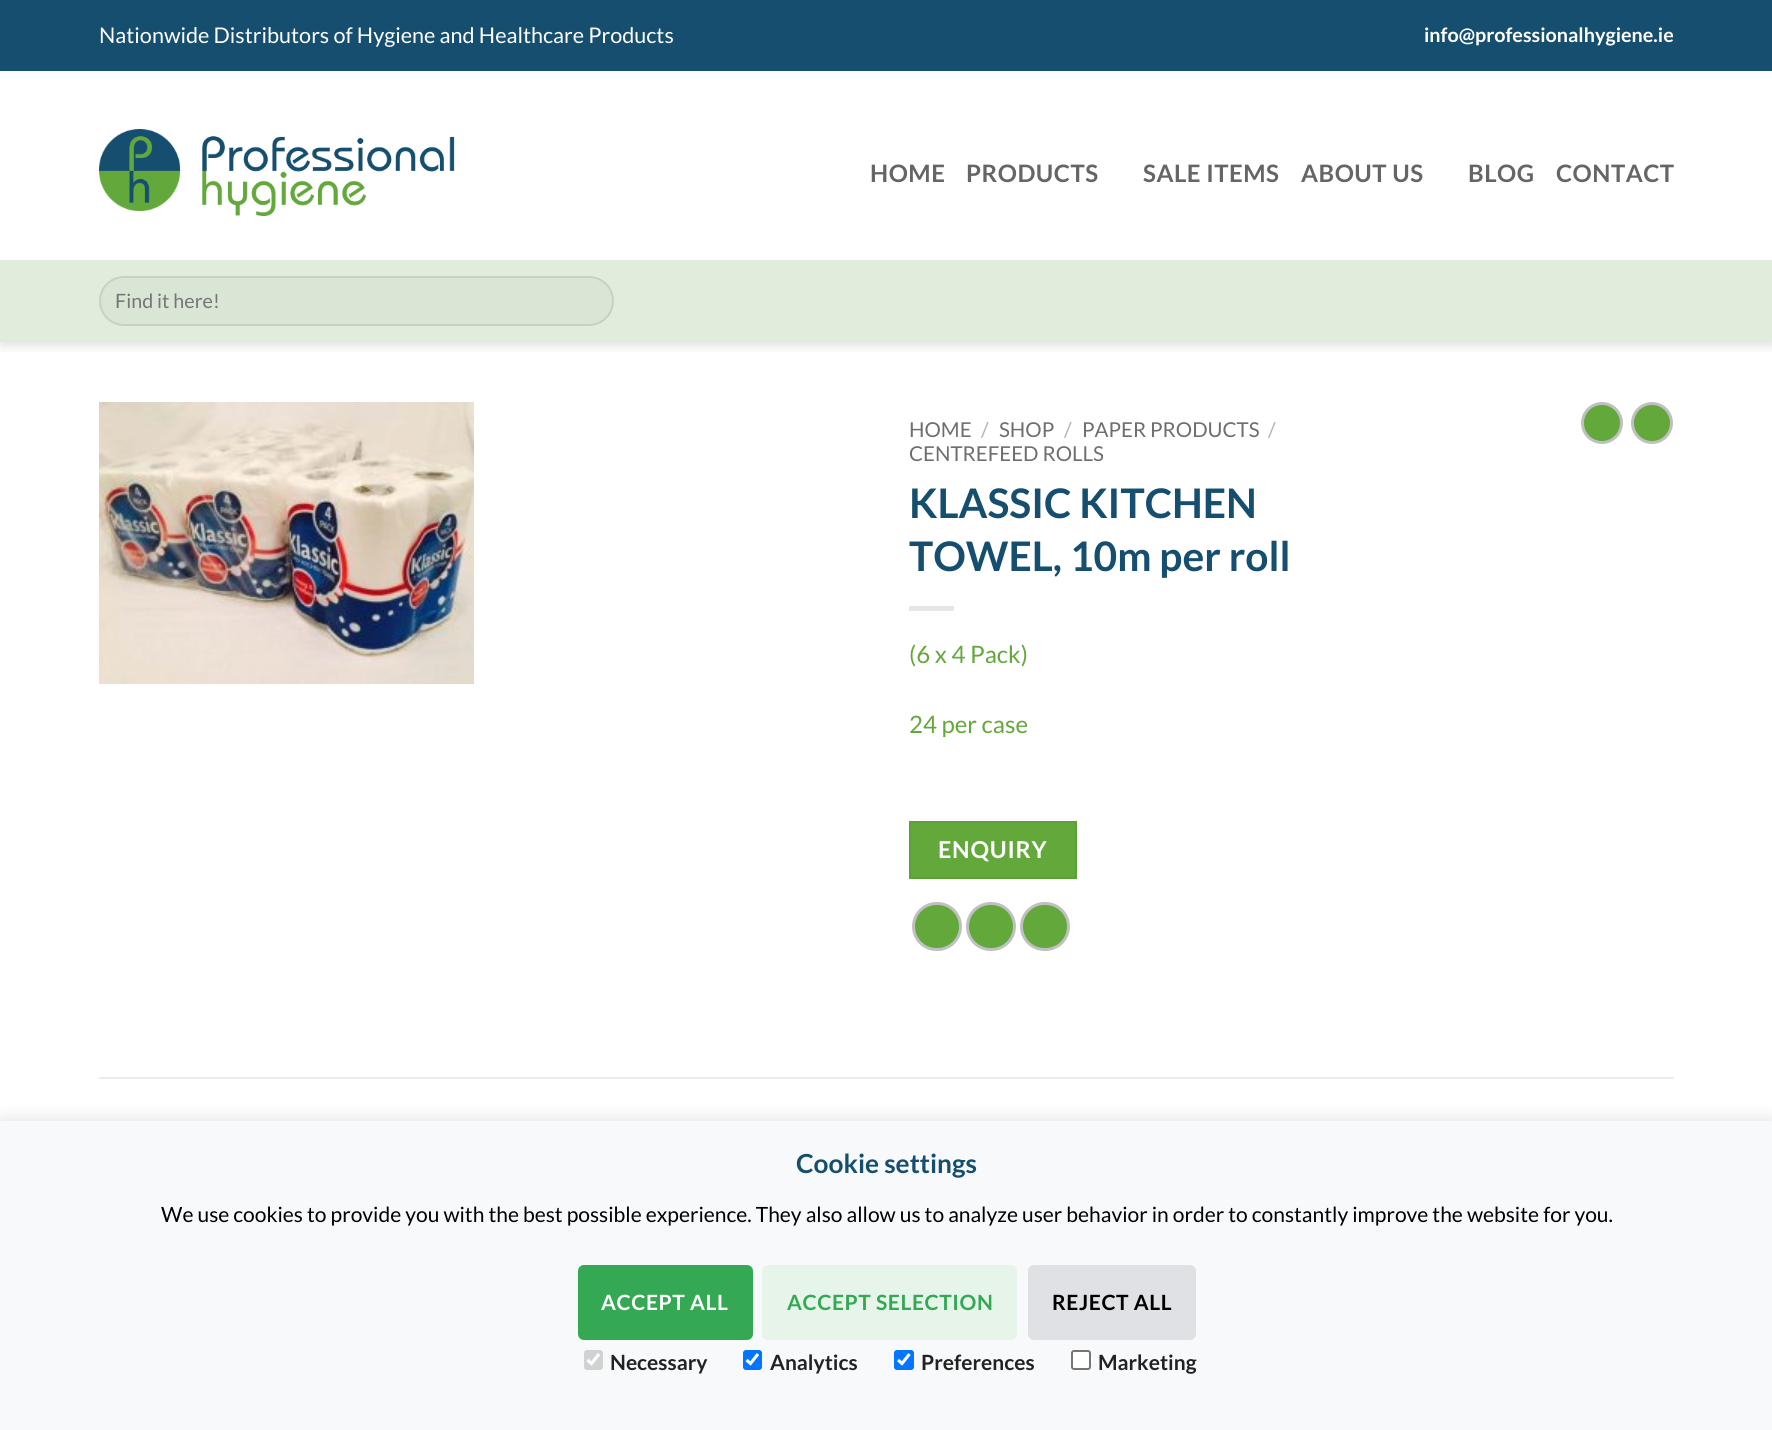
#include <cairo/cairo.h>
#include <math.h>
#include <stddef.h>

typedef struct { double x, y; const char *s; } line_t;
static cairo_t *cr;

static void rgb(unsigned color)
{
	cairo_set_source_rgb(cr, (color >> 16) / 255.0, (color >> 8 & 255) / 255.0, (color & 255) / 255.0);
}

static void tracked(double x, double y, const char *s, double letter, double word)
{
	cairo_move_to(cr, x, y);
	while (*s) {
		char ch[5] = {0};
		int n = 0;
		do ch[n++] = *s++; while ((*s & 0xC0) == 0x80);
		cairo_show_text(cr, ch);
		cairo_rel_move_to(cr, letter + word * (*ch == ' '), 0);
	}
}

static void rrect(double x, double y, double w, double h, double r)
{
	cairo_new_sub_path(cr);
	cairo_arc(cr, x + w - r, y + h - r, r, 0, M_PI / 2);
	cairo_arc(cr, x + r, y + h - r, r, M_PI / 2, M_PI);
	cairo_arc(cr, x + r, y + r, r, M_PI, 1.5 * M_PI);
	cairo_arc(cr, x + w - r, y + r, r, 1.5 * M_PI, 2 * M_PI);
	cairo_close_path(cr);
}

static void soft_shadow(double x, double y, double w, double h, double r, double blur, double alpha)
{
	cairo_push_group_with_content(cr, CAIRO_CONTENT_ALPHA);
	cairo_set_operator(cr, CAIRO_OPERATOR_SOURCE);
	for (int i = 15; i >= -15 && fmin(w, h) + blur * i / 3 > 0; i -= 2) {
		double e = blur * i / 6;
		cairo_set_source_rgba(cr, 0, 0, 0, alpha * erfc((i - 1) / 8.5) / 2);
		rrect(x - e, y - e, w + 2 * e, h + 2 * e, fmax(0, fmin(r + e + blur * .6, fmin(w, h) / 2 + e)));
		cairo_fill(cr);
	}
	cairo_pattern_t *soft = cairo_pop_group(cr);
	cairo_mask(cr, soft);
	cairo_pattern_destroy(soft);
}

static void image(const char *path, double x, double y, double w, double h)
{
	cairo_surface_t *image = cairo_image_surface_create_from_png(path);
	cairo_save(cr);
	cairo_set_source_surface(cr, image, x, y);
	cairo_rectangle(cr, x, y, w, h);
	cairo_fill(cr);
	cairo_restore(cr);
	cairo_surface_destroy(image);
}

int main(void) {
	cairo_surface_t *surface = cairo_image_surface_create(CAIRO_FORMAT_RGB24, 1772, 1430);
	cr = cairo_create(surface);
	cairo_font_options_t *options = cairo_font_options_create();
	cairo_font_options_set_hint_metrics(options, CAIRO_HINT_METRICS_OFF);
	cairo_font_options_set_hint_style(options, CAIRO_HINT_STYLE_NONE);
	cairo_set_font_options(cr, options);
	cairo_set_miter_limit(cr, 4);
	rgb(0xffffff);
	cairo_paint(cr);
	cairo_save(cr);
	cairo_rectangle(cr, 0, 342, 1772, 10);
	cairo_clip(cr);
	rgb(0x000000);
	soft_shadow(2, 2, 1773, 342, 0, 7.5, 0.15);
	cairo_restore(cr);
	rgb(0x164e6f);
	cairo_rectangle(cr, 0, 0, 1772, 71);
	cairo_fill(cr);
	image("img/1.png", 99, 129, 356, 87);
	rgb(0xe1eddc);
	cairo_rectangle(cr, 0, 260, 1772, 82);
	cairo_fill(cr);
	rgb(0xdae6d5);
	rrect(99, 276, 515, 50, 25);
	cairo_fill(cr);
	rrect(100, 277, 513, 48, 24);
	cairo_set_source_rgba(cr, 0, 0, 0, 0.09);
	cairo_stroke(cr);
	image("img/2.png", 99, 402, 375, 282);
	rgb(0xe6e6e6);
	cairo_rectangle(cr, 909, 606, 45, 5);
	cairo_fill(cr);
	rgb(0x63a83b);
	cairo_rectangle(cr, 910, 822, 166, 56);
	cairo_fill_preserve(cr);
	rgb(0x5ea038);
	cairo_stroke(cr);
	rgb(0x63a83b);
	rrect(913.5, 903.5, 47, 46, 23);
	cairo_fill_preserve(cr);
	rgb(0xc0c0c0);
	cairo_set_line_width(cr, 3);
	cairo_stroke(cr);
	rgb(0x63a83b);
	rrect(967.5, 903.5, 47, 46, 23);
	cairo_fill_preserve(cr);
	rgb(0xc0c0c0);
	cairo_stroke(cr);
	rgb(0x63a83b);
	rrect(1021.5, 903.5, 47, 46, 23);
	cairo_fill_preserve(cr);
	rgb(0xc0c0c0);
	cairo_stroke(cr);
	rgb(0x63a83b);
	cairo_arc(cr, 1602, 423, 19.5, 0, 2 * M_PI);
	cairo_fill_preserve(cr);
	rgb(0xc0c0c0);
	cairo_stroke(cr);
	rgb(0x63a83b);
	cairo_arc(cr, 1652, 423, 19.5, 0, 2 * M_PI);
	cairo_fill_preserve(cr);
	rgb(0xc0c0c0);
	cairo_stroke(cr);
	rgb(0xececec);
	cairo_rectangle(cr, 99, 1077, 1575, 2);
	cairo_fill(cr);
	rgb(0x000000);
	soft_shadow(0, 1118, 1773, 310, 0, 7.5, 0.1);
	rgb(0xf8f9fa);
	cairo_rectangle(cr, 0, 1121, 1772, 309);
	cairo_fill(cr);
	rgb(0x34a853);
	rrect(578, 1265, 175, 75, 6);
	cairo_fill(cr);
	rgb(0xe6f4ea);
	rrect(762, 1265, 255, 75, 6);
	cairo_fill(cr);
	rgb(0xdfe1e5);
	rrect(1028, 1265, 168, 75, 6);
	cairo_fill(cr);
	rgb(0xd1d2d2);
	rrect(584, 1350, 19, 20, 3);
	cairo_fill(cr);
	cairo_new_path(cr);
	cairo_move_to(cr, 587.5, 1360);
	cairo_line_to(cr, 591.5, 1363.5);
	cairo_line_to(cr, 599, 1354);
	rgb(0xffffff);
	cairo_set_line_width(cr, 3.1);
	cairo_stroke(cr);
	rgb(0x0075ff);
	rrect(743, 1350, 19, 20, 3);
	cairo_fill(cr);
	cairo_new_path(cr);
	cairo_move_to(cr, 746.5, 1360);
	cairo_line_to(cr, 750.5, 1363.5);
	cairo_line_to(cr, 758, 1354);
	rgb(0xffffff);
	cairo_stroke(cr);
	rgb(0x0075ff);
	rrect(894, 1350, 20, 20, 3);
	cairo_fill(cr);
	cairo_new_path(cr);
	cairo_move_to(cr, 898, 1360);
	cairo_line_to(cr, 902, 1363.5);
	cairo_line_to(cr, 909.5, 1354);
	rgb(0xffffff);
	cairo_stroke(cr);
	rrect(1072, 1351, 18, 18, 2);
	cairo_fill_preserve(cr);
	rgb(0x767676);
	cairo_set_line_width(cr, 2);
	cairo_stroke(cr);
	cairo_select_font_face(cr, "Lato", CAIRO_FONT_SLANT_NORMAL, CAIRO_FONT_WEIGHT_NORMAL);
	cairo_set_font_size(cr, 21.6);
	rgb(0xffffff);
	cairo_move_to(cr, 99, 43);
	cairo_show_text(cr, "Nationwide Distributors of Hygiene and Healthcare Products");
	cairo_select_font_face(cr, "Lato", CAIRO_FONT_SLANT_NORMAL, CAIRO_FONT_WEIGHT_BOLD);
	cairo_set_font_size(cr, 19.75);
	cairo_move_to(cr, 1424, 42);
	cairo_show_text(cr, "info@professionalhygiene.ie");
	cairo_set_font_size(cr, 24);
	rgb(0x656565);
	{
		static const line_t items[] = {
			{870, 182, "HOME"},
			{966, 182, "PRODUCTS"},
			{1143, 182, "SALE ITEMS"},
			{1301, 182, "ABOUT US"},
			{1468, 182, "BLOG"},
			{1556, 182, "CONTACT"},
		};
		for (size_t i = 0; i < sizeof items / sizeof *items; i++) {
			tracked(items[i].x, items[i].y, items[i].s, 0.5, 0);
		}
	}
	cairo_select_font_face(cr, "Lato", CAIRO_FONT_SLANT_NORMAL, CAIRO_FONT_WEIGHT_NORMAL);
	cairo_set_font_size(cr, 19.75);
	rgb(0x757575);
	cairo_move_to(cr, 115, 308);
	cairo_show_text(cr, "Find it here!");
	cairo_set_font_size(cr, 20.5);
	rgb(0x6e6e6e);
	cairo_move_to(cr, 909, 437);
	cairo_show_text(cr, "HOME");
	rgb(0xb2b2b2);
	cairo_move_to(cr, 981, 437);
	cairo_show_text(cr, "/");
	rgb(0x6e6e6e);
	cairo_move_to(cr, 999, 437);
	cairo_show_text(cr, "SHOP");
	rgb(0xb2b2b2);
	cairo_move_to(cr, 1064, 437);
	cairo_show_text(cr, "/");
	rgb(0x6e6e6e);
	cairo_move_to(cr, 1082, 437);
	cairo_show_text(cr, "PAPER PRODUCTS");
	rgb(0xb2b2b2);
	cairo_move_to(cr, 1268, 437);
	cairo_show_text(cr, "/");
	rgb(0x6e6e6e);
	cairo_move_to(cr, 909, 461);
	cairo_show_text(cr, "CENTREFEED ROLLS");
	cairo_select_font_face(cr, "Lato", CAIRO_FONT_SLANT_NORMAL, CAIRO_FONT_WEIGHT_BOLD);
	cairo_set_font_size(cr, 40.75);
	rgb(0x164e6f);
	cairo_move_to(cr, 909, 518);
	cairo_show_text(cr, "KLASSIC KITCHEN");
	cairo_move_to(cr, 909, 571);
	cairo_show_text(cr, "TOWEL, 10m per roll");
	cairo_select_font_face(cr, "Lato", CAIRO_FONT_SLANT_NORMAL, CAIRO_FONT_WEIGHT_NORMAL);
	cairo_set_font_size(cr, 24);
	rgb(0x63a83b);
	cairo_move_to(cr, 909, 663);
	cairo_show_text(cr, "(6 x 4 Pack)");
	cairo_move_to(cr, 909, 733);
	cairo_show_text(cr, "24 per case");
	cairo_select_font_face(cr, "Lato", CAIRO_FONT_SLANT_NORMAL, CAIRO_FONT_WEIGHT_BOLD);
	cairo_set_font_size(cr, 23.25);
	rgb(0xffffff);
	tracked(938, 858, "ENQUIRY", 0.75, 0);
	cairo_set_font_size(cr, 26.25);
	rgb(0x164e6f);
	cairo_move_to(cr, 796, 1173);
	cairo_show_text(cr, "Cookie settings");
	cairo_select_font_face(cr, "Lato", CAIRO_FONT_SLANT_NORMAL, CAIRO_FONT_WEIGHT_NORMAL);
	cairo_set_font_size(cr, 21);
	rgb(0x000000);
	cairo_move_to(cr, 161, 1222);
	cairo_show_text(cr, "We use cookies to provide you with the best possible experience. They also allow us to analyze user behavior in order to constantly improve the website for you.");
	cairo_select_font_face(cr, "Lato", CAIRO_FONT_SLANT_NORMAL, CAIRO_FONT_WEIGHT_BOLD);
	rgb(0xffffff);
	tracked(601, 1310, "ACCEPT ALL", 0.6, 0);
	rgb(0x34a853);
	tracked(787, 1310, "ACCEPT SELECTION", 0.6, 0);
	rgb(0x000000);
	tracked(1052, 1310, "REJECT ALL", 0.6, 0);
	rgb(0x222222);
	{
		static const line_t items[] = {
			{610, 1370, "Necessary"},
			{770, 1370, "Analytics"},
			{921, 1370, "Preferences"},
			{1098, 1370, "Marketing"},
		};
		for (size_t i = 0; i < sizeof items / sizeof *items; i++) {
			cairo_move_to(cr, items[i].x, items[i].y);
			cairo_show_text(cr, items[i].s);
		}
	}
	cairo_surface_write_to_png(surface, "page.png");
	cairo_font_options_destroy(options);
	cairo_destroy(cr);
	cairo_surface_destroy(surface);
	return 0;
}
